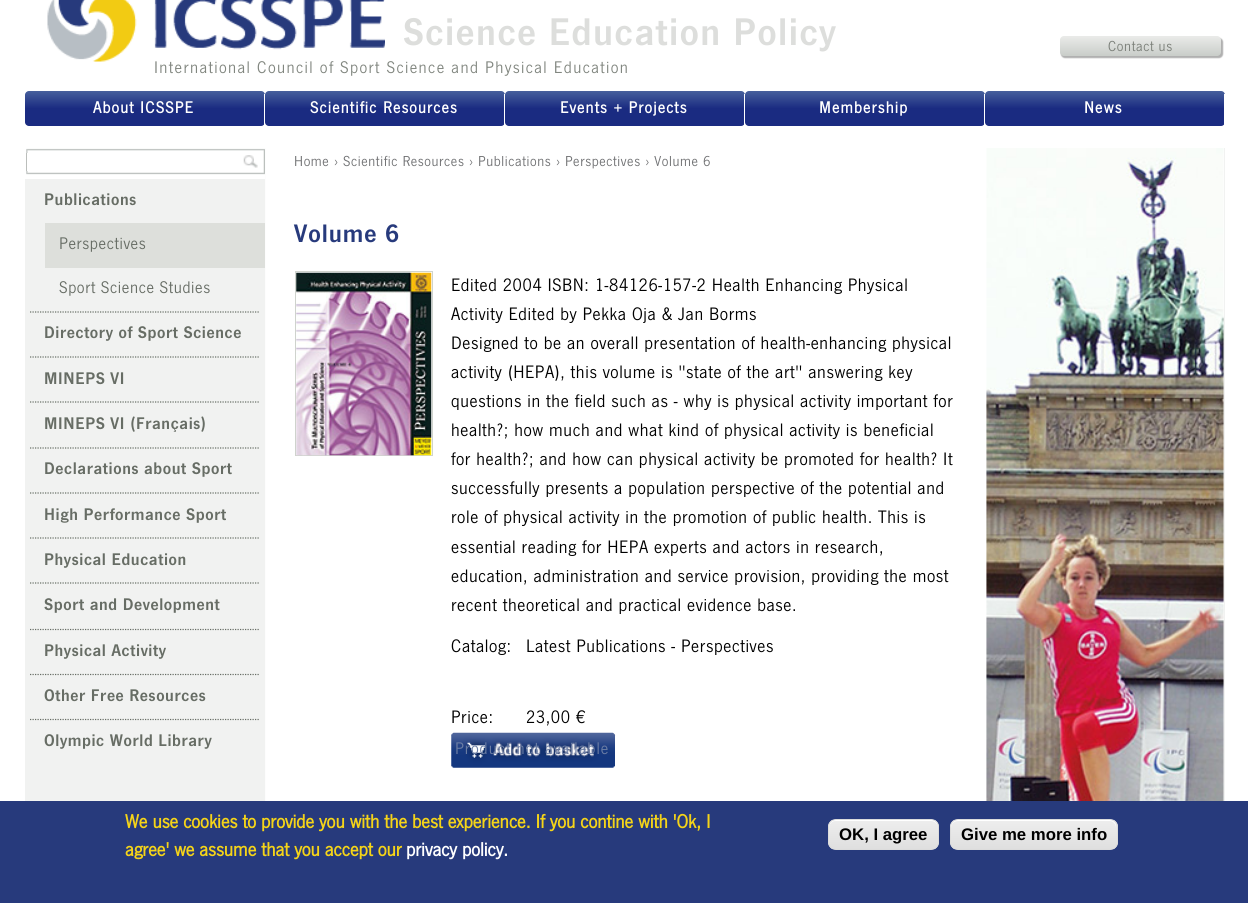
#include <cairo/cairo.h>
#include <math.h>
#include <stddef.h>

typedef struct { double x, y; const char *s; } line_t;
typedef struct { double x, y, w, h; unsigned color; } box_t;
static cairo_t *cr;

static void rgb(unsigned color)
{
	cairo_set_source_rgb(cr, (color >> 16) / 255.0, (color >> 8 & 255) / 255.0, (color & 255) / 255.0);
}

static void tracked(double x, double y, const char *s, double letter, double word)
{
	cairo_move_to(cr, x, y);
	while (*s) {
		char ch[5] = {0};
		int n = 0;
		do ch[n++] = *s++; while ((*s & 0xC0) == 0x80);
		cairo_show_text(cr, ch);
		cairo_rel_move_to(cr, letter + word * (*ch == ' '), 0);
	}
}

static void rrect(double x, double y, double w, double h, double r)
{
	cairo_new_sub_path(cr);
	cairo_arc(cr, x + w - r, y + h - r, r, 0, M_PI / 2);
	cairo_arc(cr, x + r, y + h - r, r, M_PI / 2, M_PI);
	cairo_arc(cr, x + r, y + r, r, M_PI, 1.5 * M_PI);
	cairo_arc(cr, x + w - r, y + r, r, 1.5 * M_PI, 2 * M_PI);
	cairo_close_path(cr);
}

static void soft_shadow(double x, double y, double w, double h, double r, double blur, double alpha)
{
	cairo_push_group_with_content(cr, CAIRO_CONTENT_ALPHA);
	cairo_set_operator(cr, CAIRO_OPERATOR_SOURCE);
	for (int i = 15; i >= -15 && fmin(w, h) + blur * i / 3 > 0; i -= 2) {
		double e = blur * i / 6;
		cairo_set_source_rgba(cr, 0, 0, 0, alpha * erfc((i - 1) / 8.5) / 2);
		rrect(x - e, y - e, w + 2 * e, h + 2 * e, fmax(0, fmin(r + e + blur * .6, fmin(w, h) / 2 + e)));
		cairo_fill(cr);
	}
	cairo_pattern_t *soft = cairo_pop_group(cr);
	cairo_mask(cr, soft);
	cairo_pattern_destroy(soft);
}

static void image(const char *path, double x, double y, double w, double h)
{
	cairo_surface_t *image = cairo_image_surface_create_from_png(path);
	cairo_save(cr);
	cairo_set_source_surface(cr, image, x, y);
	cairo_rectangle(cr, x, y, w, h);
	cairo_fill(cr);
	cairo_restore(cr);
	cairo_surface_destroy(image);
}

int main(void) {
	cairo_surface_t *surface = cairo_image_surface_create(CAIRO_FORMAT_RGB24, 1248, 903);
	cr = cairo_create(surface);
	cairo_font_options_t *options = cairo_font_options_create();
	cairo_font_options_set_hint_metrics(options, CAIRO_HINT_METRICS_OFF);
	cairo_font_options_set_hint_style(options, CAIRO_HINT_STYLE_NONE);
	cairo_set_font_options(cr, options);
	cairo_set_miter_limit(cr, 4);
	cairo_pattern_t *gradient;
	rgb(0xffffff);
	cairo_paint(cr);
	image("img/1.png", 47, 0, 338, 62);
	rgb(0xb0b0b0);
	soft_shadow(1061, 38, 162, 20, 4, 0.5, 1);
	gradient = cairo_pattern_create_linear(1141, 36, 1141, 56);
	cairo_pattern_add_color_stop_rgba(gradient, 0, 0.918, 0.922, 0.914, 1);
	cairo_pattern_add_color_stop_rgba(gradient, 1, 0.788, 0.804, 0.788, 1);
	cairo_set_source(cr, gradient);
	cairo_pattern_destroy(gradient);
	rrect(1060, 36, 161, 20, 4);
	cairo_fill(cr);
	image("img/2.png", 25, 148, 1200, 653);
	gradient = cairo_pattern_create_linear(144, 91, 144, 126);
	cairo_pattern_add_color_stop_rgba(gradient, 0, 0.278, 0.373, 0.612, 1);
	cairo_pattern_add_color_stop_rgba(gradient, 0.5, 0.102, 0.169, 0.506, 1);
	cairo_pattern_add_color_stop_rgba(gradient, 1, 0.102, 0.169, 0.506, 1);
	cairo_set_source(cr, gradient);
	cairo_pattern_destroy(gradient);
	rrect(25, 91, 240, 35, 4);
	cairo_fill(cr);
	rgb(0xffffff);
	cairo_rectangle(cr, 264, 94, 1, 31);
	cairo_fill(cr);
	gradient = cairo_pattern_create_linear(384, 91, 384, 126);
	cairo_pattern_add_color_stop_rgba(gradient, 0, 0.278, 0.373, 0.612, 1);
	cairo_pattern_add_color_stop_rgba(gradient, 0.5, 0.102, 0.169, 0.506, 1);
	cairo_pattern_add_color_stop_rgba(gradient, 1, 0.102, 0.169, 0.506, 1);
	cairo_set_source(cr, gradient);
	cairo_pattern_destroy(gradient);
	rrect(265, 91, 240, 35, 4);
	cairo_fill(cr);
	rgb(0xffffff);
	cairo_rectangle(cr, 504, 94, 1, 31);
	cairo_fill(cr);
	gradient = cairo_pattern_create_linear(624, 91, 624, 126);
	cairo_pattern_add_color_stop_rgba(gradient, 0, 0.278, 0.373, 0.612, 1);
	cairo_pattern_add_color_stop_rgba(gradient, 0.5, 0.102, 0.169, 0.506, 1);
	cairo_pattern_add_color_stop_rgba(gradient, 1, 0.102, 0.169, 0.506, 1);
	cairo_set_source(cr, gradient);
	cairo_pattern_destroy(gradient);
	rrect(505, 91, 240, 35, 4);
	cairo_fill(cr);
	rgb(0xffffff);
	cairo_rectangle(cr, 744, 94, 1, 31);
	cairo_fill(cr);
	gradient = cairo_pattern_create_linear(864, 91, 864, 126);
	cairo_pattern_add_color_stop_rgba(gradient, 0, 0.278, 0.373, 0.612, 1);
	cairo_pattern_add_color_stop_rgba(gradient, 0.5, 0.102, 0.169, 0.506, 1);
	cairo_pattern_add_color_stop_rgba(gradient, 1, 0.102, 0.169, 0.506, 1);
	cairo_set_source(cr, gradient);
	cairo_pattern_destroy(gradient);
	rrect(745, 91, 240, 35, 4);
	cairo_fill(cr);
	rgb(0xffffff);
	cairo_rectangle(cr, 984, 94, 1, 31);
	cairo_fill(cr);
	gradient = cairo_pattern_create_linear(1104, 91, 1104, 126);
	cairo_pattern_add_color_stop_rgba(gradient, 0, 0.278, 0.373, 0.612, 1);
	cairo_pattern_add_color_stop_rgba(gradient, 0.5, 0.102, 0.169, 0.506, 1);
	cairo_pattern_add_color_stop_rgba(gradient, 1, 0.102, 0.169, 0.506, 1);
	cairo_set_source(cr, gradient);
	cairo_pattern_destroy(gradient);
	rrect(985, 91, 240, 35, 4);
	cairo_fill(cr);
	rgb(0xffffff);
	cairo_rectangle(cr, 1224, 94, 1, 31);
	cairo_fill(cr);
	cairo_rectangle(cr, 25, 148, 240, 31);
	cairo_fill(cr);
	image("img/3.png", 26, 148, 239, 27);
	{
		static const box_t items[] = {
			{27, 153, 1, 18, 0xffffff},
			{26, 153, 1, 18, 0xbbbebb},
			{45, 223, 220, 45, 0xdddfdb},
		};
		for (size_t i = 0; i < sizeof items / sizeof *items; i++) {
			rgb(items[i].color);
			cairo_rectangle(cr, items[i].x, items[i].y, items[i].w, items[i].h);
			cairo_fill(cr);
		}
	}
	cairo_new_path(cr);
	cairo_move_to(cr, 30, 312);
	cairo_line_to(cr, 260, 312);
	rgb(0x676d65);
	cairo_set_line_width(cr, 1.2);
	cairo_set_dash(cr, (double[]){1.25, 1.25}, 2, 0);
	cairo_stroke(cr);
	cairo_new_path(cr);
	cairo_move_to(cr, 30, 357);
	cairo_line_to(cr, 260, 357);
	cairo_stroke(cr);
	cairo_new_path(cr);
	cairo_move_to(cr, 30, 402);
	cairo_line_to(cr, 260, 402);
	cairo_stroke(cr);
	cairo_new_path(cr);
	cairo_move_to(cr, 30, 448);
	cairo_line_to(cr, 260, 448);
	cairo_stroke(cr);
	cairo_new_path(cr);
	cairo_move_to(cr, 30, 493);
	cairo_line_to(cr, 260, 493);
	cairo_stroke(cr);
	cairo_new_path(cr);
	cairo_move_to(cr, 30, 538);
	cairo_line_to(cr, 260, 538);
	cairo_stroke(cr);
	cairo_new_path(cr);
	cairo_move_to(cr, 30, 583);
	cairo_line_to(cr, 260, 583);
	cairo_stroke(cr);
	cairo_new_path(cr);
	cairo_move_to(cr, 30, 629.5);
	cairo_line_to(cr, 260, 629.5);
	cairo_stroke(cr);
	cairo_new_path(cr);
	cairo_move_to(cr, 30, 674.5);
	cairo_line_to(cr, 260, 674.5);
	cairo_stroke(cr);
	cairo_new_path(cr);
	cairo_move_to(cr, 30, 719.5);
	cairo_line_to(cr, 260, 719.5);
	cairo_stroke(cr);
	cairo_rectangle(cr, 295.5, 271.5, 137, 184);
	rgb(0xcfd3cd);
	cairo_set_line_width(cr, 1);
	cairo_set_dash(cr, NULL, 0, 0);
	cairo_stroke(cr);
	image("img/4.png", 296, 272, 136, 184);
	image("img/5.png", 451, 732, 165, 36);
	rgb(0xffffff);
	cairo_rectangle(cr, 986, 148, 238, 653);
	cairo_fill(cr);
	image("img/6.png", 986, 148, 238, 653);
	rgb(0x273a7c);
	cairo_rectangle(cr, 0, 801, 1248, 102);
	cairo_fill(cr);
	cairo_save(cr);
	rrect(828, 819, 111, 31, 8);
	cairo_clip(cr);
	gradient = cairo_pattern_create_linear(883, 820, 883, 849);
	cairo_pattern_add_color_stop_rgba(gradient, 0.05, 0.929, 0.929, 0.929, 1);
	cairo_pattern_add_color_stop_rgba(gradient, 1, 0.875, 0.875, 0.875, 1);
	cairo_set_source(cr, gradient);
	cairo_pattern_destroy(gradient);
	cairo_rectangle(cr, 828, 820, 111, 29);
	cairo_fill(cr);
	cairo_restore(cr);
	rgb(0xffffff);
	cairo_new_path(cr);
	cairo_move_to(cr, 835, 821);
	cairo_line_to(cr, 931, 821);
	cairo_curve_to(cr, 935, 821, 938, 824, 938, 828);
	cairo_curve_to(cr, 938, 816, 925, 820, 916, 820);
	cairo_line_to(cr, 851, 820);
	cairo_curve_to(cr, 842, 820, 829, 816, 829, 828);
	cairo_curve_to(cr, 829, 824, 832, 821, 835, 821);
	cairo_close_path(cr);
	cairo_fill(cr);
	rrect(828.5, 819.5, 110, 30, 7.5);
	rgb(0xdcdcdc);
	cairo_stroke(cr);
	cairo_save(cr);
	rrect(950, 819, 168, 31, 8);
	cairo_clip(cr);
	gradient = cairo_pattern_create_linear(1034, 820, 1034, 849);
	cairo_pattern_add_color_stop_rgba(gradient, 0.05, 0.929, 0.929, 0.929, 1);
	cairo_pattern_add_color_stop_rgba(gradient, 1, 0.875, 0.875, 0.875, 1);
	cairo_set_source(cr, gradient);
	cairo_pattern_destroy(gradient);
	cairo_rectangle(cr, 950, 820, 168, 29);
	cairo_fill(cr);
	cairo_restore(cr);
	rgb(0xffffff);
	cairo_new_path(cr);
	cairo_move_to(cr, 958, 821);
	cairo_line_to(cr, 1110, 821);
	cairo_curve_to(cr, 1113, 821, 1116, 824, 1116, 828);
	cairo_line_to(cr, 1116, 826);
	cairo_curve_to(cr, 1116, 823, 1113, 820, 1110, 820);
	cairo_line_to(cr, 957, 820);
	cairo_curve_to(cr, 954, 820, 951, 823, 951, 826);
	cairo_line_to(cr, 951, 828);
	cairo_curve_to(cr, 951, 824, 954, 821, 958, 821);
	cairo_close_path(cr);
	cairo_fill(cr);
	rrect(950.5, 819.5, 167, 30, 7.5);
	rgb(0xdcdcdc);
	cairo_stroke(cr);
	cairo_select_font_face(cr, "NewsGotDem", CAIRO_FONT_SLANT_NORMAL, CAIRO_FONT_WEIGHT_NORMAL);
	cairo_set_font_size(cr, 40);
	rgb(0xdddedc);
	tracked(403, 45, "Science Education Policy", 1.5, 0);
	cairo_select_font_face(cr, "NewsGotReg", CAIRO_FONT_SLANT_NORMAL, CAIRO_FONT_WEIGHT_NORMAL);
	cairo_set_font_size(cr, 17.5);
	rgb(0x81867f);
	tracked(154, 73, "International Council of Sport Science and Physical Education", 1.38, 0);
	cairo_set_font_size(cr, 15);
	rgb(0x7b7f79);
	tracked(1108, 51, "Contact us", 0.62, 0);
	cairo_select_font_face(cr, "NewsGotReg", CAIRO_FONT_SLANT_NORMAL, CAIRO_FONT_WEIGHT_BOLD);
	cairo_set_font_size(cr, 16.9);
	rgb(0xffffff);
	{
		static const line_t items[] = {
			{93, 113, "About ICSSPE"},
			{310, 113, "Scientific Resources"},
			{560, 113, "Events + Projects"},
			{819, 113, "Membership"},
			{1084, 113, "News"},
		};
		for (size_t i = 0; i < sizeof items / sizeof *items; i++) {
			tracked(items[i].x, items[i].y, items[i].s, 1.25, 0);
		}
	}
	cairo_select_font_face(cr, "NewsGotDem", CAIRO_FONT_SLANT_NORMAL, CAIRO_FONT_WEIGHT_NORMAL);
	cairo_set_font_size(cr, 17.5);
	rgb(0x676d65);
	tracked(44, 205, "Publications", 0.62, 0);
	cairo_select_font_face(cr, "NewsGotReg", CAIRO_FONT_SLANT_NORMAL, CAIRO_FONT_WEIGHT_NORMAL);
	tracked(59, 249, "Perspectives", 0.62, 0);
	tracked(59, 293, "Sport Science Studies", 0.62, 0);
	cairo_select_font_face(cr, "NewsGotDem", CAIRO_FONT_SLANT_NORMAL, CAIRO_FONT_WEIGHT_NORMAL);
	{
		static const line_t items[] = {
			{44, 338, "Directory of Sport Science"},
			{44, 384, "MINEPS VI"},
			{44, 429, "MINEPS VI (Français)"},
			{44, 474, "Declarations about Sport"},
			{44, 520, "High Performance Sport"},
			{44, 565, "Physical Education"},
			{44, 610, "Sport and Development"},
			{44, 656, "Physical Activity"},
			{44, 701, "Other Free Resources"},
			{44, 746, "Olympic World Library"},
		};
		for (size_t i = 0; i < sizeof items / sizeof *items; i++) {
			tracked(items[i].x, items[i].y, items[i].s, 0.62, 0);
		}
	}
	cairo_select_font_face(cr, "NewsGotReg", CAIRO_FONT_SLANT_NORMAL, CAIRO_FONT_WEIGHT_NORMAL);
	cairo_set_font_size(cr, 15);
	rgb(0x707173);
	tracked(294, 166, "Home › Scientific Resources › Publications › Perspectives › Volume 6", 0.62, 0);
	cairo_select_font_face(cr, "NewsGotDem", CAIRO_FONT_SLANT_NORMAL, CAIRO_FONT_WEIGHT_NORMAL);
	cairo_set_font_size(cr, 26.25);
	rgb(0x273a7c);
	tracked(294, 242, "Volume 6", 1, 0);
	cairo_select_font_face(cr, "NewsGotReg", CAIRO_FONT_SLANT_NORMAL, CAIRO_FONT_WEIGHT_NORMAL);
	cairo_set_font_size(cr, 18.75);
	rgb(0x000000);
	{
		static const line_t items[] = {
			{451, 291, "Edited 2004 ISBN: 1-84126-157-2 Health Enhancing Physical"},
			{451, 320, "Activity Edited by Pekka Oja & Jan Borms"},
			{451, 349, "Designed to be an overall presentation of health-enhancing physical"},
			{451, 378, "activity (HEPA), this volume is \"state of the art\" answering key"},
			{451, 407, "questions in the field such as - why is physical activity important for"},
			{451, 436, "health?; how much and what kind of physical activity is beneficial"},
			{451, 465, "for health?; and how can physical activity be promoted for health? It"},
			{451, 494, "successfully presents a population perspective of the potential and"},
			{451, 523, "role of physical activity in the promotion of public health. This is"},
			{451, 553, "essential reading for HEPA experts and actors in research,"},
			{451, 582, "education, administration and service provision, providing the most"},
			{451, 611, "recent theoretical and practical evidence base."},
			{451, 652, "Catalog:"},
			{526, 652, "Latest Publications - Perspectives"},
			{451, 723, "Price:"},
			{526, 723, "23,00 €"},
		};
		for (size_t i = 0; i < sizeof items / sizeof *items; i++) {
			tracked(items[i].x, items[i].y, items[i].s, 0.62, 0);
		}
	}
	cairo_set_font_size(cr, 17.5);
	rgb(0x6b7da4);
	tracked(455, 754, "Product not available", 1, 0);
	cairo_select_font_face(cr, "NewsGotReg", CAIRO_FONT_SLANT_NORMAL, CAIRO_FONT_WEIGHT_BOLD);
	cairo_set_font_size(cr, 20);
	rgb(0xf5d418);
	cairo_move_to(cr, 125, 828);
	cairo_show_text(cr, "We use cookies to provide you with the best experience. If you contine with 'Ok, I");
	cairo_move_to(cr, 125, 856);
	cairo_show_text(cr, "agree' we assume that you accept our");
	rgb(0xffffff);
	cairo_move_to(cr, 406, 856);
	cairo_show_text(cr, "privacy policy.");
	cairo_select_font_face(cr, "Liberation Sans", CAIRO_FONT_SLANT_NORMAL, CAIRO_FONT_WEIGHT_BOLD);
	cairo_set_font_size(cr, 16.75);
	rgb(0x000000);
	cairo_move_to(cr, 839, 840);
	cairo_show_text(cr, "OK, I agree");
	cairo_move_to(cr, 961, 840);
	cairo_show_text(cr, "Give me more info");
	cairo_surface_write_to_png(surface, "page.png");
	cairo_font_options_destroy(options);
	cairo_destroy(cr);
	cairo_surface_destroy(surface);
	return 0;
}
